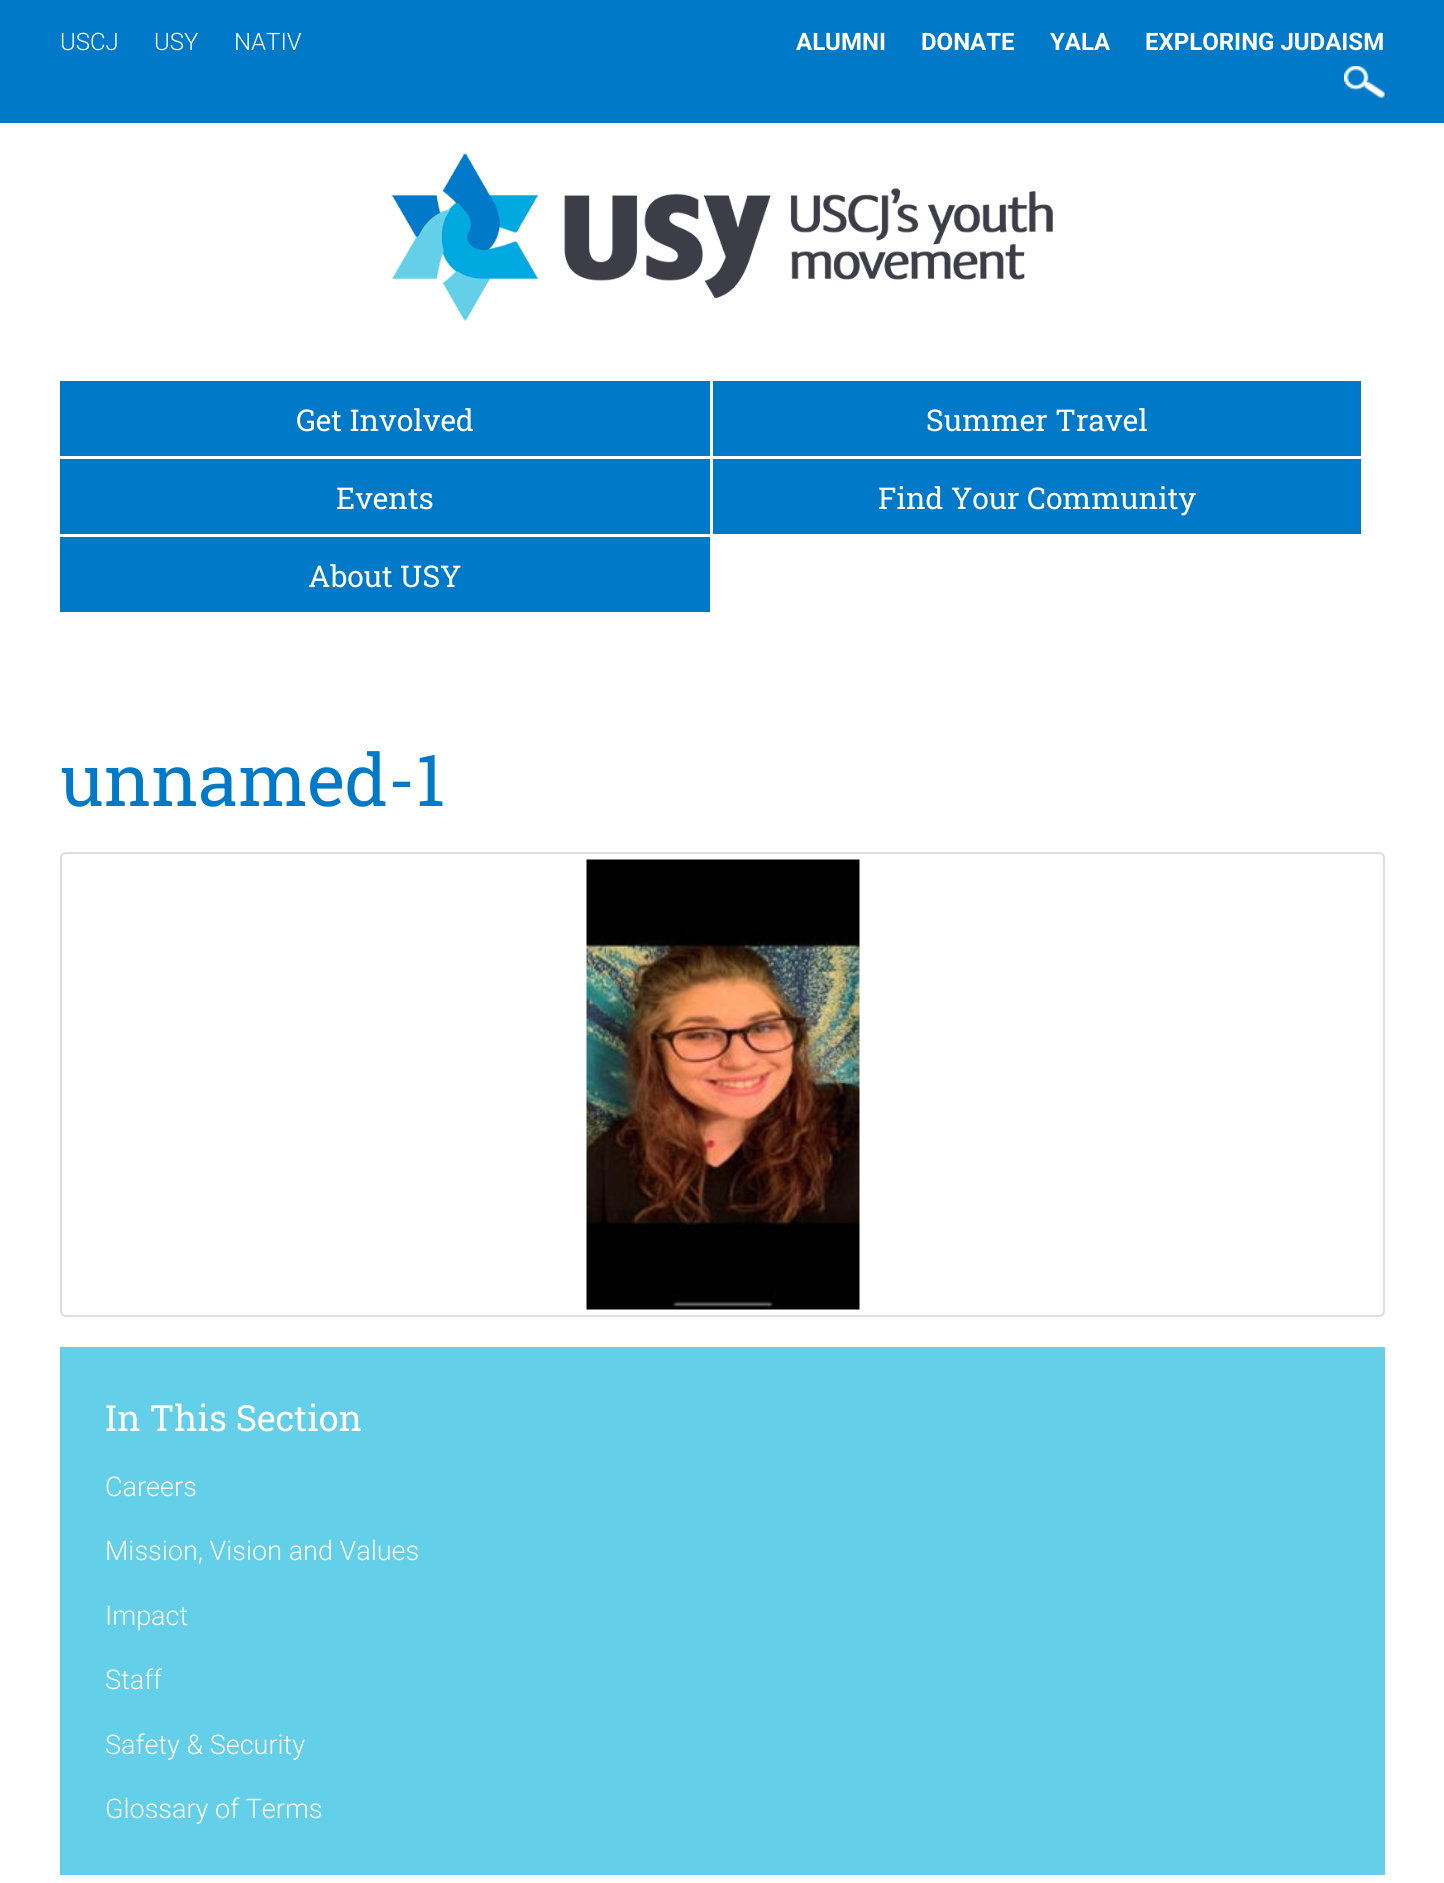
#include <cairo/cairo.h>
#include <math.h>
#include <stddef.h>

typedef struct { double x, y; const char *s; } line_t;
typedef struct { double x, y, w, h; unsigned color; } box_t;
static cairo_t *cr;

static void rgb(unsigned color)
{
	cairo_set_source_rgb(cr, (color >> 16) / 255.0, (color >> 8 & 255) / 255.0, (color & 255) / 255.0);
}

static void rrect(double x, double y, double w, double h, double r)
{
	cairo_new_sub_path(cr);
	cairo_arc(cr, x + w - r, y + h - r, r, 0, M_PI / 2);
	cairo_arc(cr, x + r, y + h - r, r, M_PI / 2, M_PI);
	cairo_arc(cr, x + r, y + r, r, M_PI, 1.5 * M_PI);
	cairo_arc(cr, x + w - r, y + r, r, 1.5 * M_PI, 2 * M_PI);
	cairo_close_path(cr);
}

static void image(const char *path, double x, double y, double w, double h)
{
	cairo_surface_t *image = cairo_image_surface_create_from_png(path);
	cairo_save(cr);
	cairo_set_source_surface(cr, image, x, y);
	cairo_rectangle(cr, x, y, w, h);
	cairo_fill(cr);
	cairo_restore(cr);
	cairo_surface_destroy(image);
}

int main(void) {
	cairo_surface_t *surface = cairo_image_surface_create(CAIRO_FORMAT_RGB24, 1444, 1883);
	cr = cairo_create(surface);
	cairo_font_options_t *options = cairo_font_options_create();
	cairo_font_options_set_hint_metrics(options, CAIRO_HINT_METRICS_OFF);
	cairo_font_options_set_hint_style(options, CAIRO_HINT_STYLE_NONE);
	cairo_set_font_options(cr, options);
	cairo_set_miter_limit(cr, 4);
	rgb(0xffffff);
	cairo_paint(cr);
	rgb(0x007ac8);
	cairo_rectangle(cr, 0, 0, 1444, 123);
	cairo_fill(cr);
	image("img/1.png", 1344, 66, 41, 32);
	image("img/2.png", 391, 153, 662, 168);
	{
		static const box_t items[] = {
			{60, 381, 650, 75, 0x007ac8},
			{713, 381, 648, 75, 0x007ac8},
			{60, 459, 650, 75, 0x007ac8},
			{713, 459, 648, 75, 0x007ac8},
			{60, 537, 650, 75, 0x007ac8},
		};
		for (size_t i = 0; i < sizeof items / sizeof *items; i++) {
			rgb(items[i].color);
			cairo_rectangle(cr, items[i].x, items[i].y, items[i].w, items[i].h);
			cairo_fill(cr);
		}
	}
	rrect(61, 853, 1323, 463, 5);
	rgb(0xdddddd);
	cairo_stroke(cr);
	image("img/3.png", 586, 859, 274, 451);
	rgb(0x64cfe9);
	cairo_rectangle(cr, 60, 1347, 1325, 528);
	cairo_fill(cr);
	cairo_select_font_face(cr, "Roboto Light", CAIRO_FONT_SLANT_NORMAL, CAIRO_FONT_WEIGHT_NORMAL);
	cairo_set_font_size(cr, 24);
	rgb(0xffffff);
	{
		static const line_t items[] = {
			{60, 50, "USCJ"},
			{154, 50, "USY"},
			{234, 50, "NATIV"},
		};
		for (size_t i = 0; i < sizeof items / sizeof *items; i++) {
			cairo_move_to(cr, items[i].x, items[i].y);
			cairo_show_text(cr, items[i].s);
		}
	}
	cairo_select_font_face(cr, "Roboto", CAIRO_FONT_SLANT_NORMAL, CAIRO_FONT_WEIGHT_BOLD);
	{
		static const line_t items[] = {
			{796, 50, "ALUMNI"},
			{921, 50, "DONATE"},
			{1050, 50, "YALA"},
			{1145, 50, "EXPLORING JUDAISM"},
		};
		for (size_t i = 0; i < sizeof items / sizeof *items; i++) {
			cairo_move_to(cr, items[i].x, items[i].y);
			cairo_show_text(cr, items[i].s);
		}
	}
	cairo_select_font_face(cr, "Roboto Slab", CAIRO_FONT_SLANT_NORMAL, CAIRO_FONT_WEIGHT_NORMAL);
	cairo_set_font_size(cr, 30);
	{
		static const line_t items[] = {
			{296, 431, "Get Involved"},
			{926, 431, "Summer Travel"},
			{336, 509, "Events"},
			{878, 509, "Find Your Community"},
			{308, 587, "About USY"},
		};
		for (size_t i = 0; i < sizeof items / sizeof *items; i++) {
			cairo_move_to(cr, items[i].x, items[i].y);
			cairo_show_text(cr, items[i].s);
		}
	}
	cairo_set_font_size(cr, 72);
	rgb(0x007ac8);
	cairo_move_to(cr, 60, 806);
	cairo_show_text(cr, "unnamed-1");
	cairo_set_font_size(cr, 36);
	rgb(0xffffff);
	cairo_move_to(cr, 105, 1431);
	cairo_show_text(cr, "In This Section");
	cairo_select_font_face(cr, "Roboto Light", CAIRO_FONT_SLANT_NORMAL, CAIRO_FONT_WEIGHT_NORMAL);
	cairo_set_font_size(cr, 27);
	{
		static const line_t items[] = {
			{105, 1496, "Careers"},
			{105, 1560, "Mission, Vision and Values"},
			{105, 1625, "Impact"},
			{105, 1689, "Staff"},
			{105, 1754, "Safety & Security"},
			{105, 1818, "Glossary of Terms"},
		};
		for (size_t i = 0; i < sizeof items / sizeof *items; i++) {
			cairo_move_to(cr, items[i].x, items[i].y);
			cairo_show_text(cr, items[i].s);
		}
	}
	cairo_surface_write_to_png(surface, "page.png");
	cairo_font_options_destroy(options);
	cairo_destroy(cr);
	cairo_surface_destroy(surface);
	return 0;
}
